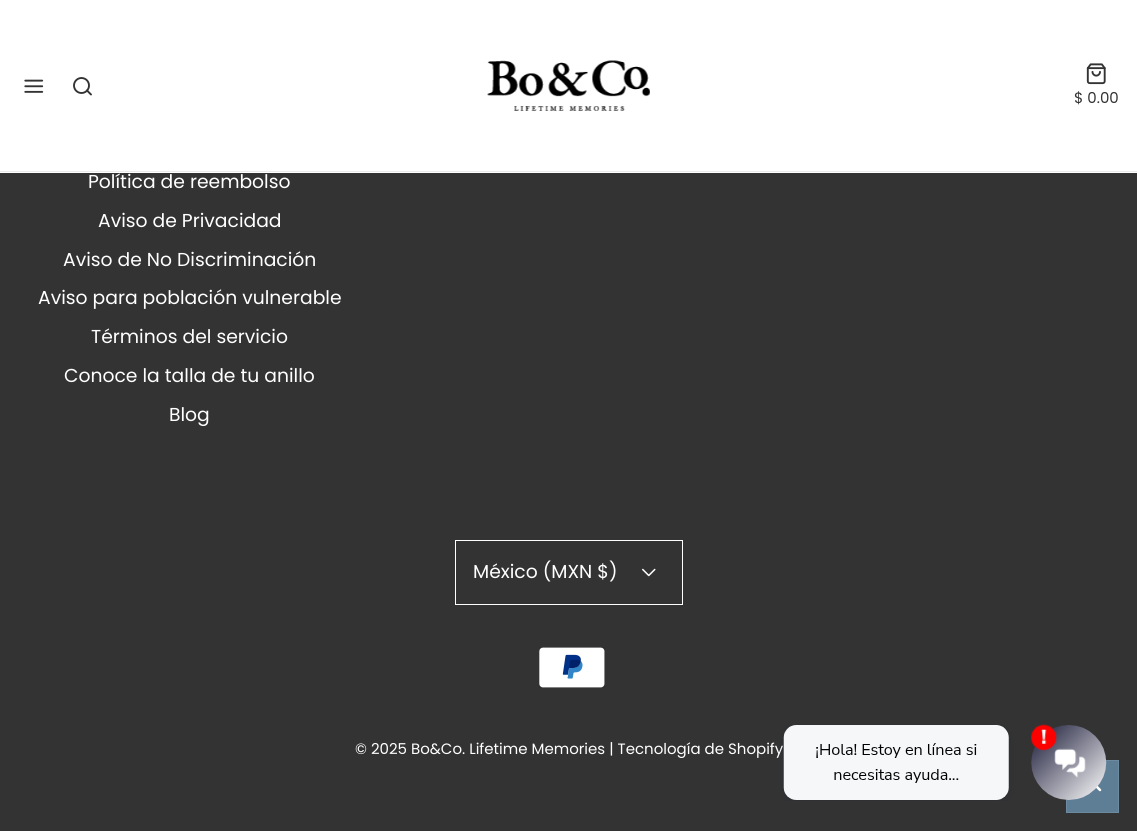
#include <cairo/cairo.h>
#include <math.h>
#include <stddef.h>

typedef struct { double x, y; const char *s; } line_t;
static cairo_t *cr;

static void rgb(unsigned color)
{
	cairo_set_source_rgb(cr, (color >> 16) / 255.0, (color >> 8 & 255) / 255.0, (color & 255) / 255.0);
}

static void image(const char *path, double x, double y, double w, double h)
{
	cairo_surface_t *image = cairo_image_surface_create_from_png(path);
	cairo_save(cr);
	cairo_set_source_surface(cr, image, x, y);
	cairo_rectangle(cr, x, y, w, h);
	cairo_fill(cr);
	cairo_restore(cr);
	cairo_surface_destroy(image);
}

int main(void) {
	cairo_surface_t *surface = cairo_image_surface_create(CAIRO_FORMAT_RGB24, 1137, 831);
	cr = cairo_create(surface);
	cairo_font_options_t *options = cairo_font_options_create();
	cairo_font_options_set_hint_metrics(options, CAIRO_HINT_METRICS_OFF);
	cairo_font_options_set_hint_style(options, CAIRO_HINT_STYLE_NONE);
	cairo_set_font_options(cr, options);
	cairo_set_miter_limit(cr, 4);
	rgb(0x333333);
	cairo_paint(cr);
	rgb(0xffffff);
	cairo_rectangle(cr, 0, 0, 1137, 173);
	cairo_fill(cr);
	rgb(0xebebeb);
	cairo_rectangle(cr, 0, 171, 1137, 1);
	cairo_fill(cr);
	image("img/1.png", 24, 79, 20, 14);
	cairo_arc(cr, 81.5, 85.5, 7.5, 0, 2 * M_PI);
	rgb(0x333333);
	cairo_set_line_width(cr, 1.9);
	cairo_stroke(cr);
	cairo_new_path(cr);
	cairo_move_to(cr, 91, 94.5);
	cairo_line_to(cr, 87, 90.5);
	cairo_set_line_cap(cr, CAIRO_LINE_CAP_ROUND);
	cairo_set_line_join(cr, CAIRO_LINE_JOIN_ROUND);
	cairo_stroke(cr);
	image("img/2.png", 487, 60, 163, 51);
	image("img/3.png", 1086, 63, 20, 22);
	cairo_rectangle(cr, 455.5, 540.5, 227, 64);
	rgb(0xffffff);
	cairo_set_line_width(cr, 1);
	cairo_set_line_cap(cr, CAIRO_LINE_CAP_BUTT);
	cairo_set_line_join(cr, CAIRO_LINE_JOIN_MITER);
	cairo_stroke(cr);
	image("img/4.png", 642, 568, 14, 9);
	image("img/5.png", 539, 647, 66, 41);
	rgb(0x5d7e95);
	cairo_rectangle(cr, 1066.5, 760.5, 52, 52);
	cairo_fill_preserve(cr);
	rgb(0x6d8ba0);
	cairo_stroke(cr);
	cairo_new_path(cr);
	cairo_move_to(cr, 1100, 790);
	cairo_line_to(cr, 1092.5, 782.5);
	cairo_line_to(cr, 1085, 790);
	rgb(0xffffff);
	cairo_set_line_width(cr, 2.5);
	cairo_set_line_cap(cr, CAIRO_LINE_CAP_ROUND);
	cairo_set_line_join(cr, CAIRO_LINE_JOIN_ROUND);
	cairo_stroke(cr);
	cairo_select_font_face(cr, "Poppins", CAIRO_FONT_SLANT_NORMAL, CAIRO_FONT_WEIGHT_NORMAL);
	cairo_set_font_size(cr, 15);
	rgb(0x333333);
	cairo_move_to(cr, 1074, 103);
	cairo_show_text(cr, "$ 0.00");
	cairo_set_font_size(cr, 18.75);
	rgb(0xffffff);
	{
		static const line_t items[] = {
			{88, 188, "Política de reembolso"},
			{98, 227, "Aviso de Privacidad"},
			{63, 266, "Aviso de No Discriminación"},
			{38, 304, "Aviso para población vulnerable"},
			{91, 343, "Términos del servicio"},
			{64, 382, "Conoce la talla de tu anillo"},
			{169, 421, "Blog"},
			{473, 578, "México (MXN $)"},
		};
		for (size_t i = 0; i < sizeof items / sizeof *items; i++) {
			cairo_move_to(cr, items[i].x, items[i].y);
			cairo_show_text(cr, items[i].s);
		}
	}
	cairo_set_font_size(cr, 15);
	cairo_move_to(cr, 355, 754);
	cairo_show_text(cr, "© 2025 Bo&Co. Lifetime Memories | Tecnología de Shopify");
	image("img/6.png", 780, 724, 327, 77);
	cairo_surface_write_to_png(surface, "page.png");
	cairo_font_options_destroy(options);
	cairo_destroy(cr);
	cairo_surface_destroy(surface);
	return 0;
}
